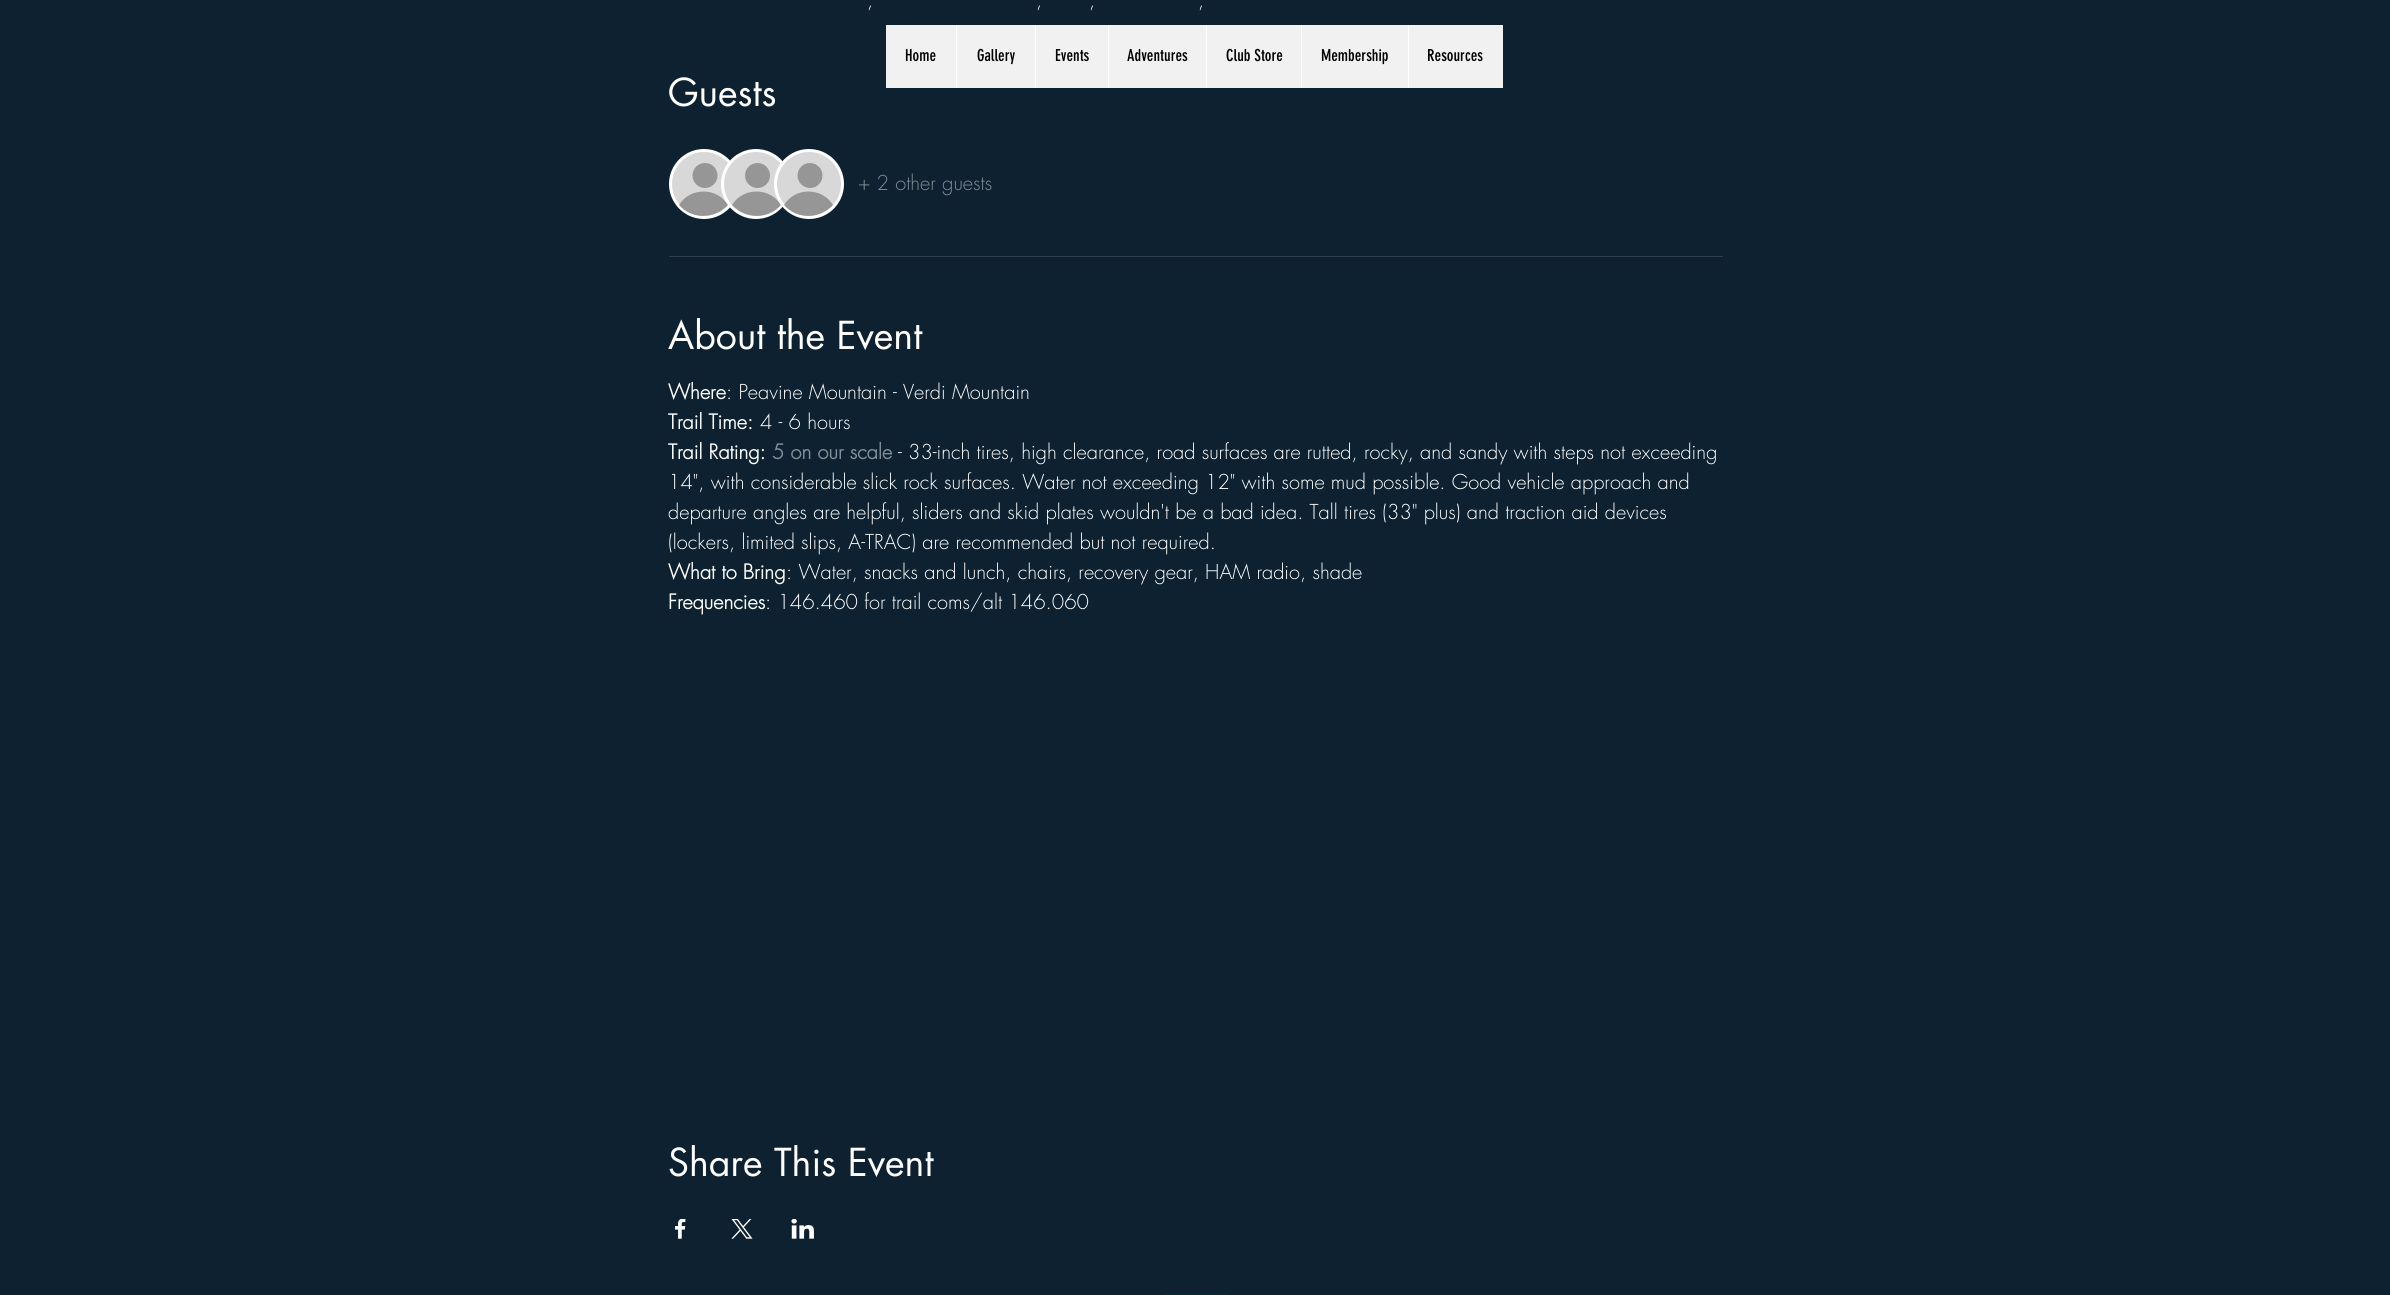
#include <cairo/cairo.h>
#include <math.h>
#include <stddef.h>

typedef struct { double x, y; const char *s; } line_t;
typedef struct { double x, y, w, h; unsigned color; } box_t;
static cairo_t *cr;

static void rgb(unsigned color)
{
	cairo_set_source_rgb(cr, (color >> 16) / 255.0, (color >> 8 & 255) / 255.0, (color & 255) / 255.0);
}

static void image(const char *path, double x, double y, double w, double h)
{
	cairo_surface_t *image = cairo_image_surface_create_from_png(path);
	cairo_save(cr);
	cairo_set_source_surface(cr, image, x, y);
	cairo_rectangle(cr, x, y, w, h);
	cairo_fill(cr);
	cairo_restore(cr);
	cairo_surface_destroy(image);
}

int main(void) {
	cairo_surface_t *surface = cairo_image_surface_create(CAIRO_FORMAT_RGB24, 2390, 1295);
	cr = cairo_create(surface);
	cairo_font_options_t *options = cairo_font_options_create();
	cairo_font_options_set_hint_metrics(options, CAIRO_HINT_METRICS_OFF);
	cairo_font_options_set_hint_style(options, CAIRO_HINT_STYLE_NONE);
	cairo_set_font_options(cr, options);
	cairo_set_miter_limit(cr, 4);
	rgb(0x0d2130);
	cairo_paint(cr);
	rgb(0xd8d8d8);
	cairo_arc(cr, 704, 184, 33.5, 0, 2 * M_PI);
	cairo_fill_preserve(cr);
	rgb(0xffffff);
	cairo_set_line_width(cr, 3);
	cairo_stroke(cr);
	rgb(0x969696);
	cairo_arc(cr, 705, 175.5, 12.5, 0, 2 * M_PI);
	cairo_fill(cr);
	cairo_new_path(cr);
	cairo_move_to(cr, 728, 205);
	cairo_curve_to(cr, 715, 219, 692, 220, 679, 205);
	cairo_curve_to(cr, 690, 187, 717, 187, 728, 205);
	cairo_close_path(cr);
	cairo_fill(cr);
	rgb(0xd8d8d8);
	cairo_arc(cr, 756, 184, 33.5, 0, 2 * M_PI);
	cairo_fill_preserve(cr);
	rgb(0xffffff);
	cairo_stroke(cr);
	rgb(0x969696);
	cairo_arc(cr, 757.5, 175.5, 12.5, 0, 2 * M_PI);
	cairo_fill(cr);
	cairo_new_path(cr);
	cairo_move_to(cr, 781, 205);
	cairo_curve_to(cr, 768, 220, 745, 219, 732, 205);
	cairo_curve_to(cr, 743, 187, 770, 187, 781, 205);
	cairo_close_path(cr);
	cairo_fill(cr);
	rgb(0xd8d8d8);
	cairo_arc(cr, 809, 184, 33.5, 0, 2 * M_PI);
	cairo_fill_preserve(cr);
	rgb(0xffffff);
	cairo_stroke(cr);
	rgb(0x969696);
	cairo_arc(cr, 810, 175.5, 12.5, 0, 2 * M_PI);
	cairo_fill(cr);
	cairo_new_path(cr);
	cairo_move_to(cr, 833, 205);
	cairo_curve_to(cr, 820, 219, 797, 220, 784, 205);
	cairo_curve_to(cr, 795, 187, 822, 187, 833, 205);
	cairo_close_path(cr);
	cairo_fill(cr);
	rgb(0x31424f);
	cairo_rectangle(cr, 669, 256, 1054, 1);
	cairo_fill(cr);
	image("img/1.png", 675, 1219, 11, 20);
	image("img/2.png", 731, 1219, 22, 20);
	image("img/3.png", 791, 1219, 23, 20);
	{
		static const box_t items[] = {
			{886, 25, 617, 63, 0xf1f1f1},
			{956, 25, 1, 63, 0xffffff},
			{1035, 25, 1, 63, 0xffffff},
			{1108, 25, 1, 63, 0xffffff},
			{1206, 25, 1, 63, 0xffffff},
			{1301, 25, 1, 63, 0xffffff},
			{1408, 25, 1, 63, 0xffffff},
		};
		for (size_t i = 0; i < sizeof items / sizeof *items; i++) {
			rgb(items[i].color);
			cairo_rectangle(cr, items[i].x, items[i].y, items[i].w, items[i].h);
			cairo_fill(cr);
		}
	}
	image("img/4.png", 1165, 1294, 63, 1);
	cairo_select_font_face(cr, "futura Light", CAIRO_FONT_SLANT_NORMAL, CAIRO_FONT_WEIGHT_NORMAL);
	cairo_set_font_size(cr, 20);
	{
		static const line_t items[] = {
			{867, 7, ","},
			{1036, 7, ","},
			{1089, 7, ","},
			{1198, 7, ","},
		};
		for (size_t i = 0; i < sizeof items / sizeof *items; i++) {
			cairo_move_to(cr, items[i].x, items[i].y);
			cairo_show_text(cr, items[i].s);
		}
	}
	cairo_select_font_face(cr, "futura", CAIRO_FONT_SLANT_NORMAL, CAIRO_FONT_WEIGHT_NORMAL);
	cairo_set_font_size(cr, 37.5);
	cairo_move_to(cr, 668, 106);
	cairo_show_text(cr, "Guests");
	cairo_select_font_face(cr, "futura Light", CAIRO_FONT_SLANT_NORMAL, CAIRO_FONT_WEIGHT_NORMAL);
	cairo_set_font_size(cr, 20);
	rgb(0x808f95);
	cairo_move_to(cr, 858, 190);
	cairo_show_text(cr, "+ 2 other guests");
	cairo_select_font_face(cr, "futura", CAIRO_FONT_SLANT_NORMAL, CAIRO_FONT_WEIGHT_NORMAL);
	cairo_set_font_size(cr, 37.5);
	rgb(0xffffff);
	cairo_move_to(cr, 668, 349);
	cairo_show_text(cr, "About the Event");
	cairo_select_font_face(cr, "futura", CAIRO_FONT_SLANT_NORMAL, CAIRO_FONT_WEIGHT_BOLD);
	cairo_set_font_size(cr, 20);
	cairo_move_to(cr, 668, 399);
	cairo_show_text(cr, "Where");
	cairo_select_font_face(cr, "futura Light", CAIRO_FONT_SLANT_NORMAL, CAIRO_FONT_WEIGHT_NORMAL);
	cairo_move_to(cr, 726, 399);
	cairo_show_text(cr, ": Peavine Mountain - Verdi Mountain");
	cairo_select_font_face(cr, "futura", CAIRO_FONT_SLANT_NORMAL, CAIRO_FONT_WEIGHT_BOLD);
	cairo_move_to(cr, 668, 429);
	cairo_show_text(cr, "Trail Time:");
	cairo_select_font_face(cr, "futura Light", CAIRO_FONT_SLANT_NORMAL, CAIRO_FONT_WEIGHT_NORMAL);
	cairo_move_to(cr, 760, 429);
	cairo_show_text(cr, "4 - 6 hours");
	cairo_select_font_face(cr, "futura", CAIRO_FONT_SLANT_NORMAL, CAIRO_FONT_WEIGHT_BOLD);
	cairo_move_to(cr, 668, 459);
	cairo_show_text(cr, "Trail Rating:");
	rgb(0x808f95);
	cairo_move_to(cr, 772, 459);
	cairo_show_text(cr, "5 on our scale");
	cairo_select_font_face(cr, "futura Light", CAIRO_FONT_SLANT_NORMAL, CAIRO_FONT_WEIGHT_NORMAL);
	rgb(0xffffff);
	{
		static const line_t items[] = {
			{898, 459, "- 33-inch tires, high clearance, road surfaces are rutted, rocky, and sandy with steps not exceeding"},
			{668, 489, "14\", with considerable slick rock surfaces. Water not exceeding 12\" with some mud possible. Good vehicle approach and"},
			{668, 519, "departure angles are helpful, sliders and skid plates wouldn't be a bad idea. Tall tires (33\" plus) and traction aid devices"},
			{668, 549, "(lockers, limited slips, A-TRAC) are recommended but not required."},
		};
		for (size_t i = 0; i < sizeof items / sizeof *items; i++) {
			cairo_move_to(cr, items[i].x, items[i].y);
			cairo_show_text(cr, items[i].s);
		}
	}
	cairo_select_font_face(cr, "futura", CAIRO_FONT_SLANT_NORMAL, CAIRO_FONT_WEIGHT_BOLD);
	cairo_move_to(cr, 668, 579);
	cairo_show_text(cr, "What to Bring");
	cairo_select_font_face(cr, "futura Light", CAIRO_FONT_SLANT_NORMAL, CAIRO_FONT_WEIGHT_NORMAL);
	cairo_move_to(cr, 786, 579);
	cairo_show_text(cr, ": Water, snacks and lunch, chairs, recovery gear, HAM radio, shade");
	cairo_select_font_face(cr, "futura", CAIRO_FONT_SLANT_NORMAL, CAIRO_FONT_WEIGHT_BOLD);
	cairo_move_to(cr, 668, 609);
	cairo_show_text(cr, "Frequencies");
	cairo_select_font_face(cr, "futura Light", CAIRO_FONT_SLANT_NORMAL, CAIRO_FONT_WEIGHT_NORMAL);
	cairo_move_to(cr, 765, 609);
	cairo_show_text(cr, ": 146.460 for trail coms/alt 146.060");
	cairo_select_font_face(cr, "futura", CAIRO_FONT_SLANT_NORMAL, CAIRO_FONT_WEIGHT_NORMAL);
	cairo_set_font_size(cr, 37.5);
	cairo_move_to(cr, 668, 1176);
	cairo_show_text(cr, "Share This Event");
	cairo_select_font_face(cr, "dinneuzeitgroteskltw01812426", CAIRO_FONT_SLANT_NORMAL, CAIRO_FONT_WEIGHT_NORMAL);
	cairo_set_font_size(cr, 16.25);
	rgb(0x000000);
	{
		static const line_t items[] = {
			{905, 61, "Home"},
			{977, 61, "Gallery"},
			{1055, 61, "Events"},
			{1127, 61, "Adventures"},
			{1226, 61, "Club Store"},
			{1321, 61, "Membership"},
			{1427, 61, "Resources"},
		};
		for (size_t i = 0; i < sizeof items / sizeof *items; i++) {
			cairo_move_to(cr, items[i].x, items[i].y);
			cairo_show_text(cr, items[i].s);
		}
	}
	cairo_surface_write_to_png(surface, "page.png");
	cairo_font_options_destroy(options);
	cairo_destroy(cr);
	cairo_surface_destroy(surface);
	return 0;
}
